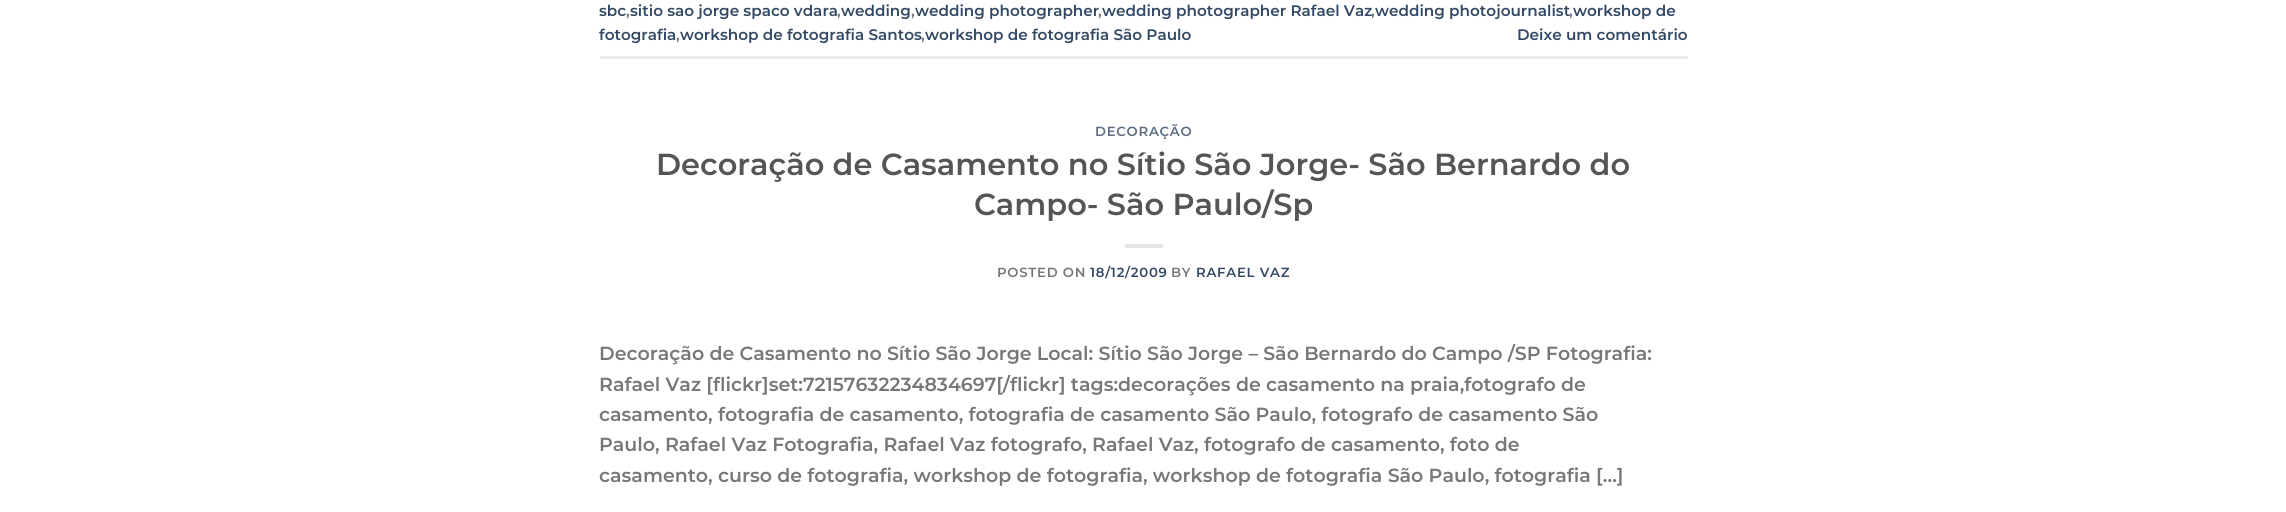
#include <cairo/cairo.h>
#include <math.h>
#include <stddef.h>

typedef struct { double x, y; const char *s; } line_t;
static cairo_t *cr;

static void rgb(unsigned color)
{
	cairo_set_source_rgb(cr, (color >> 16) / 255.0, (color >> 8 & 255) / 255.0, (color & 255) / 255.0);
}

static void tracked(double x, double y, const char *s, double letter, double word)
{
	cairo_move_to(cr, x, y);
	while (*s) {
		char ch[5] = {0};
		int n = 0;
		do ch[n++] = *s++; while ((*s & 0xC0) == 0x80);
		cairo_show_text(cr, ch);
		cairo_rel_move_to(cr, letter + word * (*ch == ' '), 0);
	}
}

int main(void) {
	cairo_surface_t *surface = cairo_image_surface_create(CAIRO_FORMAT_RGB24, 2286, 512);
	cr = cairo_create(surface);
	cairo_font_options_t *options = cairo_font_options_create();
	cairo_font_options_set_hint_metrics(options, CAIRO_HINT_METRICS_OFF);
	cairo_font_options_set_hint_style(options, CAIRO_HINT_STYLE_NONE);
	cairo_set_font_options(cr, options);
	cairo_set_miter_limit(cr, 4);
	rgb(0xffffff);
	cairo_paint(cr);
	rgb(0xececec);
	cairo_rectangle(cr, 600, 56, 1088, 3);
	cairo_fill(cr);
	rgb(0xe6e6e6);
	cairo_rectangle(cr, 1125, 244, 38, 4);
	cairo_fill(cr);
	cairo_select_font_face(cr, "Montserrat SemiBold", CAIRO_FONT_SLANT_NORMAL, CAIRO_FONT_WEIGHT_NORMAL);
	cairo_set_font_size(cr, 15.25);
	rgb(0x334862);
	cairo_move_to(cr, 599, 16);
	cairo_show_text(cr, "sbc");
	rgb(0x777777);
	cairo_move_to(cr, 626, 16);
	cairo_show_text(cr, ",");
	rgb(0x334862);
	cairo_move_to(cr, 630, 16);
	cairo_show_text(cr, "sitio sao jorge spaco vdara");
	rgb(0x777777);
	cairo_move_to(cr, 837, 16);
	cairo_show_text(cr, ",");
	rgb(0x334862);
	cairo_move_to(cr, 841, 16);
	cairo_show_text(cr, "wedding");
	rgb(0x777777);
	cairo_move_to(cr, 911, 16);
	cairo_show_text(cr, ",");
	rgb(0x334862);
	cairo_move_to(cr, 915, 16);
	cairo_show_text(cr, "wedding photographer");
	rgb(0x777777);
	cairo_move_to(cr, 1098, 16);
	cairo_show_text(cr, ",");
	rgb(0x334862);
	cairo_move_to(cr, 1102, 16);
	cairo_show_text(cr, "wedding photographer Rafael Vaz");
	rgb(0x777777);
	cairo_move_to(cr, 1371, 16);
	cairo_show_text(cr, ",");
	rgb(0x334862);
	cairo_move_to(cr, 1375, 16);
	cairo_show_text(cr, "wedding photojournalist");
	rgb(0x777777);
	cairo_move_to(cr, 1569, 16);
	cairo_show_text(cr, ",");
	rgb(0x334862);
	cairo_move_to(cr, 1573, 16);
	cairo_show_text(cr, "workshop de");
	cairo_move_to(cr, 599, 40);
	cairo_show_text(cr, "fotografia");
	rgb(0x777777);
	cairo_move_to(cr, 676, 40);
	cairo_show_text(cr, ",");
	rgb(0x334862);
	cairo_move_to(cr, 680, 40);
	cairo_show_text(cr, "workshop de fotografia Santos");
	rgb(0x777777);
	cairo_move_to(cr, 921, 40);
	cairo_show_text(cr, ",");
	rgb(0x334862);
	cairo_move_to(cr, 925, 40);
	cairo_show_text(cr, "workshop de fotografia São Paulo");
	cairo_move_to(cr, 1517, 40);
	cairo_show_text(cr, "Deixe um comentário");
	cairo_set_font_size(cr, 13.25);
	rgb(0x5c6d81);
	tracked(1095, 136, "DECORAÇÃO", 0.75, 0);
	cairo_set_font_size(cr, 30.4);
	rgb(0x555555);
	cairo_move_to(cr, 656, 175);
	cairo_show_text(cr, "Decoração de Casamento no Sítio São Jorge- São Bernardo do");
	cairo_move_to(cr, 974, 215);
	cairo_show_text(cr, "Campo- São Paulo/Sp");
	cairo_set_font_size(cr, 13.25);
	rgb(0x777777);
	tracked(997, 277, "POSTED ON", 0.75, 0);
	rgb(0x334862);
	tracked(1090, 277, "18/12/2009", 0.75, 0);
	rgb(0x777777);
	tracked(1171, 277, "BY", 0.75, 0);
	rgb(0x334862);
	tracked(1196, 277, "RAFAEL VAZ", 0.75, 0);
	cairo_set_font_size(cr, 19);
	rgb(0x777777);
	{
		static const line_t items[] = {
			{599, 360, "Decoração de Casamento no Sítio São Jorge Local: Sítio São Jorge – São Bernardo do Campo /SP Fotografia:"},
			{599, 391, "Rafael Vaz [flickr]set:72157632234834697[/flickr] tags:decorações de casamento na praia,fotografo de"},
			{599, 421, "casamento, fotografia de casamento, fotografia de casamento São Paulo, fotografo de casamento São"},
			{599, 451, "Paulo, Rafael Vaz Fotografia, Rafael Vaz fotografo, Rafael Vaz, fotografo de casamento, foto de"},
			{599, 482, "casamento, curso de fotografia, workshop de fotografia, workshop de fotografia São Paulo, fotografia […]"},
		};
		for (size_t i = 0; i < sizeof items / sizeof *items; i++) {
			cairo_move_to(cr, items[i].x, items[i].y);
			cairo_show_text(cr, items[i].s);
		}
	}
	cairo_surface_write_to_png(surface, "page.png");
	cairo_font_options_destroy(options);
	cairo_destroy(cr);
	cairo_surface_destroy(surface);
	return 0;
}
